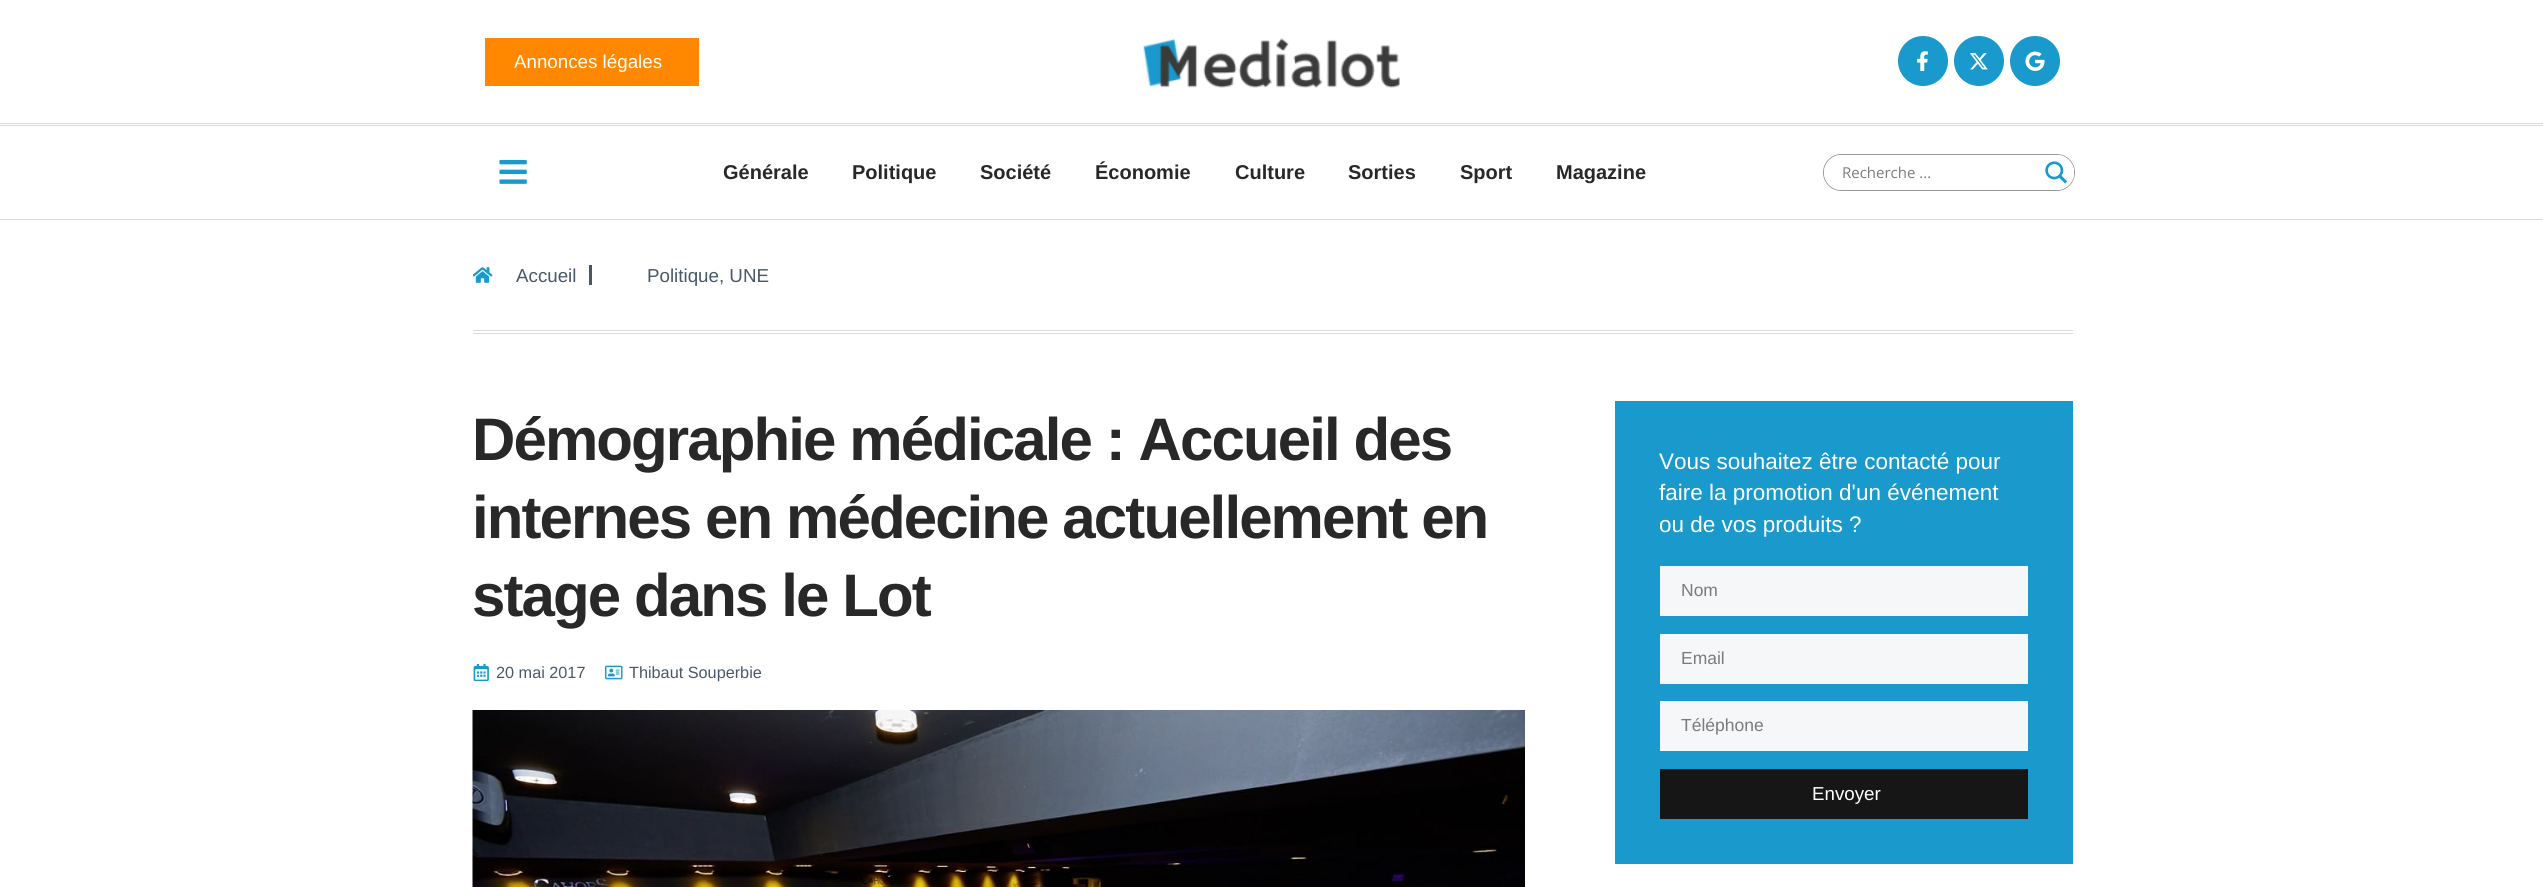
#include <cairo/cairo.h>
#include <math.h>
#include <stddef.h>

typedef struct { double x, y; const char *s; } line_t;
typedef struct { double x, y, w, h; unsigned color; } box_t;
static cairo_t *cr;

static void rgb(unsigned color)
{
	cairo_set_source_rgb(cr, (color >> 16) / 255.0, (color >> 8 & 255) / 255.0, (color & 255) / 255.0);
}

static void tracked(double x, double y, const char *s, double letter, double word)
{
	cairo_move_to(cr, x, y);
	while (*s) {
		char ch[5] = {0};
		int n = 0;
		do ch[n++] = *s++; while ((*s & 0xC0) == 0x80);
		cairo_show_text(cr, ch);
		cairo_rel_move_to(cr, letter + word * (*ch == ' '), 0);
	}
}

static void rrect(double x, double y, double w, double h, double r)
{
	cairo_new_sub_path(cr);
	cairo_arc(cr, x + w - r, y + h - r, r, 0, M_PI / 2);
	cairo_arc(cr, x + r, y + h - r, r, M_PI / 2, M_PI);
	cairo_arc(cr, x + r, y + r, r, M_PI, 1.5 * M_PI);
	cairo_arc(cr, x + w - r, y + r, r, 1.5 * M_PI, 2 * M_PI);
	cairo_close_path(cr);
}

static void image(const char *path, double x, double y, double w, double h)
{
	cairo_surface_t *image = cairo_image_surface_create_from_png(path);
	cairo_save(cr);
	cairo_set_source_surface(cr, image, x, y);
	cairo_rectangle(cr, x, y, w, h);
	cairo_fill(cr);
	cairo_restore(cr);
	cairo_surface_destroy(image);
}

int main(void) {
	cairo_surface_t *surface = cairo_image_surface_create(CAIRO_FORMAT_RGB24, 2543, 887);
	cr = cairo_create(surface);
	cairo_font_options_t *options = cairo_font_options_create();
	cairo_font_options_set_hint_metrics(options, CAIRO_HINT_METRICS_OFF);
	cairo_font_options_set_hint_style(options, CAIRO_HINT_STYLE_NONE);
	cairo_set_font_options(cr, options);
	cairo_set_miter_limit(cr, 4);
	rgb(0xffffff);
	cairo_paint(cr);
	{
		static const box_t items[] = {
			{0, 123, 2543, 1, 0xdcdcde},
			{0, 125, 2543, 1, 0xdcdcde},
			{485, 38, 214, 48, 0xff8800},
		};
		for (size_t i = 0; i < sizeof items / sizeof *items; i++) {
			rgb(items[i].color);
			cairo_rectangle(cr, items[i].x, items[i].y, items[i].w, items[i].h);
			cairo_fill(cr);
		}
	}
	image("img/1.png", 1143, 38, 257, 50);
	rgb(0x1999cc);
	cairo_arc(cr, 1923, 61, 25, 0, 2 * M_PI);
	cairo_fill(cr);
	image("img/2.png", 1917, 51, 11, 20);
	cairo_arc(cr, 1979, 61, 25, 0, 2 * M_PI);
	cairo_fill(cr);
	image("img/3.png", 1969, 53, 19, 17);
	cairo_arc(cr, 2035, 61, 25, 0, 2 * M_PI);
	cairo_fill(cr);
	image("img/4.png", 2025, 51, 20, 20);
	rgb(0xdcdcde);
	cairo_rectangle(cr, 0, 219, 2543, 1);
	cairo_fill(cr);
	image("img/5.png", 499, 159, 28, 25);
	rrect(1823.5, 154.5, 251, 36, 18);
	rgb(0x999999);
	cairo_set_line_width(cr, 1);
	cairo_stroke(cr);
	rgb(0xffffff);
	rrect(1824, 155, 250, 35, 17.5);
	cairo_fill(cr);
	cairo_save(cr);
	cairo_rectangle(cr, 2039, 155, 35, 35);
	cairo_clip(cr);
	cairo_set_source_rgba(cr, 1, 1, 1, 0.64);
	cairo_set_fill_rule(cr, CAIRO_FILL_RULE_EVEN_ODD);
	cairo_new_path(cr);
	cairo_move_to(cr, 2038, 156);
	cairo_line_to(cr, 2038, 190);
	cairo_line_to(cr, 1915, 190);
	cairo_line_to(cr, 1915, 155);
	cairo_line_to(cr, 2056, 155);
	cairo_line_to(cr, 2062, 156);
	cairo_close_path(cr);
	cairo_move_to(cr, 2072, 181);
	cairo_curve_to(cr, 2075, 176, 2075, 169, 2072, 164);
	cairo_close_path(cr);
	cairo_fill(cr);
	cairo_restore(cr);
	cairo_new_path(cr);
	cairo_move_to(cr, 2039, 155);
	cairo_line_to(cr, 2056.5, 155);
	cairo_curve_to(cr, 2066, 155, 2074, 163, 2074, 172.5);
	cairo_curve_to(cr, 2074, 182, 2066, 190, 2056.5, 190);
	cairo_line_to(cr, 2039, 190);
	cairo_close_path(cr);
	cairo_fill(cr);
	image("img/6.png", 2045, 161, 23, 23);
	rgb(0xdcdcde);
	cairo_rectangle(cr, 473, 330, 1600, 1);
	cairo_fill(cr);
	cairo_rectangle(cr, 473, 333, 1600, 1);
	cairo_fill(cr);
	image("img/7.png", 473, 267, 20, 16);
	rgb(0x48586a);
	cairo_rectangle(cr, 589, 265, 3, 20);
	cairo_fill(cr);
	image("img/8.png", 473, 664, 16, 17);
	image("img/9.png", 605, 665, 18, 15);
	image("img/10.png", 472, 710, 1053, 177);
	{
		static const box_t items[] = {
			{1615, 401, 458, 463, 0x1999cc},
			{1660, 566, 368, 50, 0xf5f7f8},
			{1660, 634, 368, 50, 0xf5f7f8},
			{1660, 701, 368, 50, 0xf5f7f8},
			{1660, 769, 368, 50, 0x161616},
		};
		for (size_t i = 0; i < sizeof items / sizeof *items; i++) {
			rgb(items[i].color);
			cairo_rectangle(cr, items[i].x, items[i].y, items[i].w, items[i].h);
			cairo_fill(cr);
		}
	}
	cairo_select_font_face(cr, "Liberation Sans", CAIRO_FONT_SLANT_NORMAL, CAIRO_FONT_WEIGHT_NORMAL);
	cairo_set_font_size(cr, 18.75);
	rgb(0xffffff);
	cairo_move_to(cr, 514, 68);
	cairo_show_text(cr, "Annonces légales");
	cairo_select_font_face(cr, "Liberation Sans", CAIRO_FONT_SLANT_NORMAL, CAIRO_FONT_WEIGHT_BOLD);
	cairo_set_font_size(cr, 20);
	rgb(0x282828);
	{
		static const line_t items[] = {
			{723, 179, "Générale"},
			{852, 179, "Politique"},
			{980, 179, "Société"},
			{1095, 179, "Économie"},
			{1235, 179, "Culture"},
			{1348, 179, "Sorties"},
			{1460, 179, "Sport"},
			{1556, 179, "Magazine"},
		};
		for (size_t i = 0; i < sizeof items / sizeof *items; i++) {
			cairo_move_to(cr, items[i].x, items[i].y);
			cairo_show_text(cr, items[i].s);
		}
	}
	cairo_select_font_face(cr, "Open Sans", CAIRO_FONT_SLANT_NORMAL, CAIRO_FONT_WEIGHT_NORMAL);
	cairo_set_font_size(cr, 15);
	rgb(0x7a7b7b);
	cairo_move_to(cr, 1842, 178);
	cairo_show_text(cr, "Recherche ...");
	cairo_select_font_face(cr, "Liberation Sans", CAIRO_FONT_SLANT_NORMAL, CAIRO_FONT_WEIGHT_NORMAL);
	cairo_set_font_size(cr, 18.75);
	rgb(0x48586a);
	cairo_move_to(cr, 516, 282);
	cairo_show_text(cr, "Accueil");
	cairo_move_to(cr, 647, 282);
	cairo_show_text(cr, "Politique, UNE");
	cairo_select_font_face(cr, "Liberation Sans", CAIRO_FONT_SLANT_NORMAL, CAIRO_FONT_WEIGHT_BOLD);
	cairo_set_font_size(cr, 60);
	rgb(0x282828);
	{
		static const line_t items[] = {
			{472, 460, "Démographie médicale : Accueil des"},
			{472, 538, "internes en médecine actuellement en"},
			{472, 616, "stage dans le Lot"},
		};
		for (size_t i = 0; i < sizeof items / sizeof *items; i++) {
			tracked(items[i].x, items[i].y, items[i].s, -1.9, 0);
		}
	}
	cairo_select_font_face(cr, "Liberation Sans", CAIRO_FONT_SLANT_NORMAL, CAIRO_FONT_WEIGHT_NORMAL);
	cairo_set_font_size(cr, 16.25);
	rgb(0x48586a);
	cairo_move_to(cr, 496, 678);
	cairo_show_text(cr, "20 mai 2017");
	cairo_move_to(cr, 629, 678);
	cairo_show_text(cr, "Thibaut Souperbie");
	cairo_set_font_size(cr, 22.5);
	rgb(0xffffff);
	{
		static const line_t items[] = {
			{1659, 469, "Vous souhaitez être contacté pour"},
			{1659, 500, "faire la promotion d'un événement"},
			{1659, 532, "ou de vos produits ?"},
		};
		for (size_t i = 0; i < sizeof items / sizeof *items; i++) {
			cairo_move_to(cr, items[i].x, items[i].y);
			cairo_show_text(cr, items[i].s);
		}
	}
	cairo_set_font_size(cr, 17.5);
	rgb(0x7a7b7b);
	{
		static const line_t items[] = {
			{1681, 596, "Nom"},
			{1681, 664, "Email"},
			{1681, 731, "Téléphone"},
		};
		for (size_t i = 0; i < sizeof items / sizeof *items; i++) {
			cairo_move_to(cr, items[i].x, items[i].y);
			cairo_show_text(cr, items[i].s);
		}
	}
	cairo_set_font_size(cr, 18.75);
	rgb(0xffffff);
	cairo_move_to(cr, 1812, 800);
	cairo_show_text(cr, "Envoyer");
	cairo_surface_write_to_png(surface, "page.png");
	cairo_font_options_destroy(options);
	cairo_destroy(cr);
	cairo_surface_destroy(surface);
	return 0;
}
